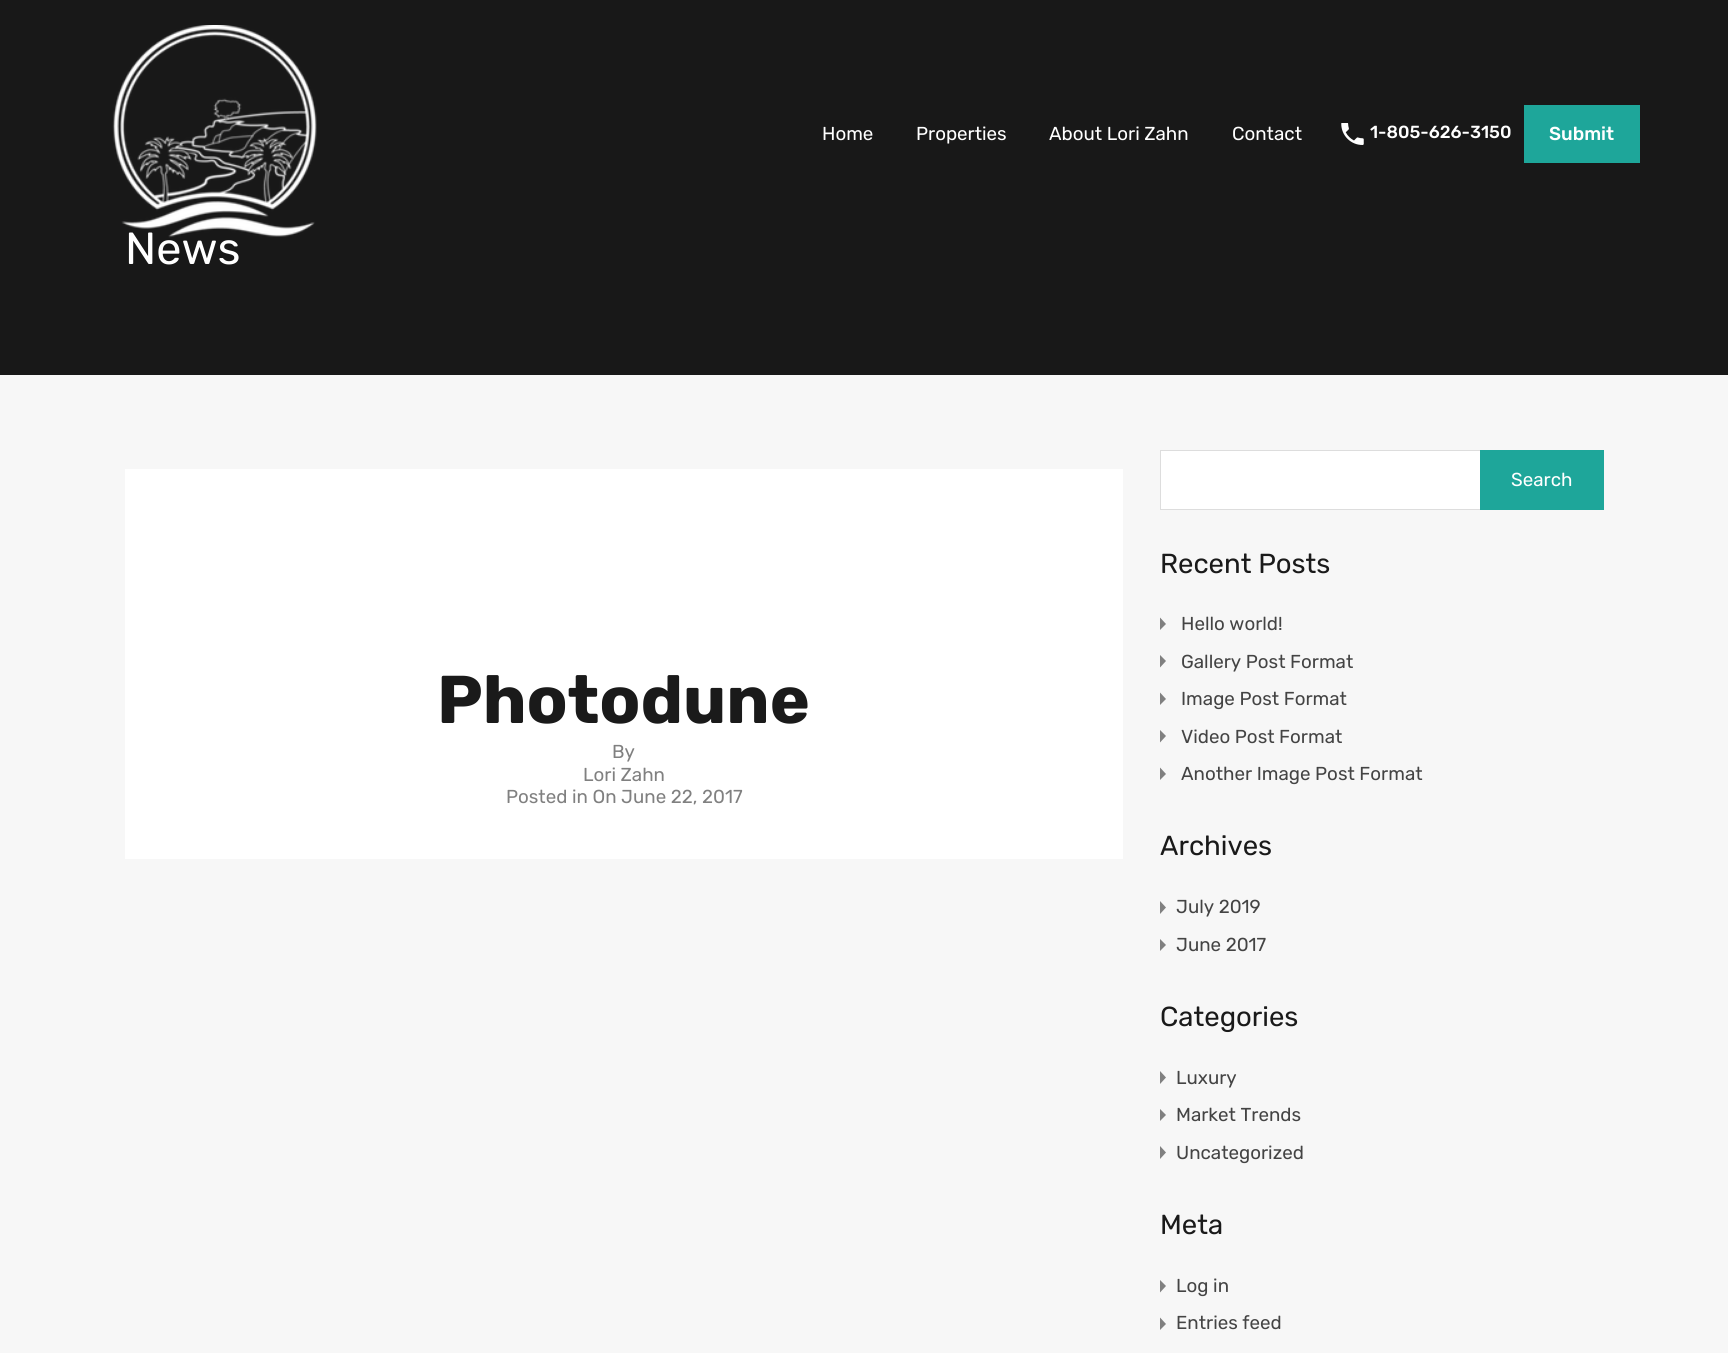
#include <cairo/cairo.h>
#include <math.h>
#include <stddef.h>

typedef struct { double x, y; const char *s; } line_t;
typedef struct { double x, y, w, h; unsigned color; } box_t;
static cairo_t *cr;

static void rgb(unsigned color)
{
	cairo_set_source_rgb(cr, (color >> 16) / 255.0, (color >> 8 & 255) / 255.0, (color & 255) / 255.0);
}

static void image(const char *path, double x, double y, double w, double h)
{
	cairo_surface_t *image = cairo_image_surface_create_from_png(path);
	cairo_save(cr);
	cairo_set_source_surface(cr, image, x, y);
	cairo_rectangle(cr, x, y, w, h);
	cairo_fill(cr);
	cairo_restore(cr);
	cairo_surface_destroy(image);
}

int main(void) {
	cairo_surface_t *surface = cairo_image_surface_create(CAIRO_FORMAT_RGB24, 1728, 1353);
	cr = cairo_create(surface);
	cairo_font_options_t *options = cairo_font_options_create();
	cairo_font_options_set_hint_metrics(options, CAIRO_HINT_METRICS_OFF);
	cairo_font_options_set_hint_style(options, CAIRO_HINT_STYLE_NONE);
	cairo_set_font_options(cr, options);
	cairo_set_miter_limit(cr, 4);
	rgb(0xf7f7f7);
	cairo_paint(cr);
	rgb(0x181818);
	cairo_rectangle(cr, 0, 0, 1728, 375);
	cairo_fill(cr);
	image("img/2.png", 1341, 123, 23, 22);
	{
		static const box_t items[] = {
			{1524, 105, 116, 58, 0x1ea69a},
			{125, 469, 998, 390, 0xffffff},
			{1161, 451, 319, 58, 0xffffff},
			{1160, 450, 320, 1, 0xdddddd},
			{1160, 509, 320, 1, 0xdddddd},
			{1160, 450, 1, 60, 0xdddddd},
			{1480, 450, 124, 60, 0x1ea69a},
		};
		for (size_t i = 0; i < sizeof items / sizeof *items; i++) {
			rgb(items[i].color);
			cairo_rectangle(cr, items[i].x, items[i].y, items[i].w, items[i].h);
			cairo_fill(cr);
		}
	}
	rgb(0x808080);
	cairo_new_path(cr);
	cairo_move_to(cr, 1160, 630);
	cairo_line_to(cr, 1160, 617.5);
	cairo_line_to(cr, 1166, 624);
	cairo_close_path(cr);
	cairo_fill(cr);
	cairo_new_path(cr);
	cairo_move_to(cr, 1160, 667.5);
	cairo_line_to(cr, 1160, 655);
	cairo_line_to(cr, 1166, 661);
	cairo_close_path(cr);
	cairo_fill(cr);
	cairo_new_path(cr);
	cairo_move_to(cr, 1160, 705);
	cairo_line_to(cr, 1160, 692.5);
	cairo_line_to(cr, 1166, 699);
	cairo_close_path(cr);
	cairo_fill(cr);
	cairo_new_path(cr);
	cairo_move_to(cr, 1160, 742.5);
	cairo_line_to(cr, 1160, 730);
	cairo_line_to(cr, 1166, 736);
	cairo_close_path(cr);
	cairo_fill(cr);
	cairo_new_path(cr);
	cairo_move_to(cr, 1160, 780);
	cairo_line_to(cr, 1160, 767.5);
	cairo_line_to(cr, 1166, 774);
	cairo_close_path(cr);
	cairo_fill(cr);
	cairo_new_path(cr);
	cairo_move_to(cr, 1160, 914);
	cairo_line_to(cr, 1160, 901);
	cairo_line_to(cr, 1166, 907.5);
	cairo_close_path(cr);
	cairo_fill(cr);
	cairo_new_path(cr);
	cairo_move_to(cr, 1160, 951);
	cairo_line_to(cr, 1160, 939);
	cairo_line_to(cr, 1166, 945);
	cairo_close_path(cr);
	cairo_fill(cr);
	cairo_new_path(cr);
	cairo_move_to(cr, 1160, 1084);
	cairo_line_to(cr, 1160, 1071);
	cairo_line_to(cr, 1166, 1077.5);
	cairo_close_path(cr);
	cairo_fill(cr);
	cairo_new_path(cr);
	cairo_move_to(cr, 1160, 1121);
	cairo_line_to(cr, 1160, 1109);
	cairo_line_to(cr, 1166, 1115);
	cairo_close_path(cr);
	cairo_fill(cr);
	cairo_new_path(cr);
	cairo_move_to(cr, 1160, 1159);
	cairo_line_to(cr, 1160, 1146);
	cairo_line_to(cr, 1166, 1152.5);
	cairo_close_path(cr);
	cairo_fill(cr);
	cairo_new_path(cr);
	cairo_move_to(cr, 1160, 1292.5);
	cairo_line_to(cr, 1160, 1280);
	cairo_line_to(cr, 1166, 1286);
	cairo_close_path(cr);
	cairo_fill(cr);
	cairo_new_path(cr);
	cairo_move_to(cr, 1160, 1330);
	cairo_line_to(cr, 1160, 1317.5);
	cairo_line_to(cr, 1166, 1324);
	cairo_close_path(cr);
	cairo_fill(cr);
	cairo_select_font_face(cr, "Rubik", CAIRO_FONT_SLANT_NORMAL, CAIRO_FONT_WEIGHT_NORMAL);
	cairo_set_font_size(cr, 18.75);
	rgb(0xffffff);
	{
		static const line_t items[] = {
			{822, 140, "Home"},
			{916, 140, "Properties"},
			{1049, 140, "About Lori Zahn"},
			{1232, 140, "Contact"},
		};
		for (size_t i = 0; i < sizeof items / sizeof *items; i++) {
			cairo_move_to(cr, items[i].x, items[i].y);
			cairo_show_text(cr, items[i].s);
		}
	}
	cairo_select_font_face(cr, "Rubik Medium", CAIRO_FONT_SLANT_NORMAL, CAIRO_FONT_WEIGHT_NORMAL);
	cairo_set_font_size(cr, 17.5);
	cairo_move_to(cr, 1370, 138);
	cairo_show_text(cr, "1-805-626-3150");
	cairo_set_font_size(cr, 18.75);
	cairo_move_to(cr, 1549, 140);
	cairo_show_text(cr, "Submit");
	cairo_select_font_face(cr, "Rubik", CAIRO_FONT_SLANT_NORMAL, CAIRO_FONT_WEIGHT_NORMAL);
	cairo_set_font_size(cr, 45);
	cairo_move_to(cr, 125, 264);
	cairo_show_text(cr, "News");
	image("img/1.png", 112, 25, 205, 213);
	cairo_select_font_face(cr, "Rubik", CAIRO_FONT_SLANT_NORMAL, CAIRO_FONT_WEIGHT_BOLD);
	cairo_set_font_size(cr, 67.5);
	rgb(0x1a1a1a);
	cairo_move_to(cr, 437, 723);
	cairo_show_text(cr, "Photodune");
	cairo_select_font_face(cr, "Rubik", CAIRO_FONT_SLANT_NORMAL, CAIRO_FONT_WEIGHT_NORMAL);
	cairo_set_font_size(cr, 18.75);
	rgb(0x808080);
	{
		static const line_t items[] = {
			{612, 758, "By"},
			{583, 781, "Lori Zahn"},
			{506, 803, "Posted in On June 22, 2017"},
		};
		for (size_t i = 0; i < sizeof items / sizeof *items; i++) {
			cairo_move_to(cr, items[i].x, items[i].y);
			cairo_show_text(cr, items[i].s);
		}
	}
	rgb(0xffffff);
	cairo_move_to(cr, 1511, 486);
	cairo_show_text(cr, "Search");
	cairo_set_font_size(cr, 27.5);
	rgb(0x1a1a1a);
	cairo_move_to(cr, 1160, 573);
	cairo_show_text(cr, "Recent Posts");
	cairo_set_font_size(cr, 18.75);
	rgb(0x444444);
	{
		static const line_t items[] = {
			{1181, 630, "Hello world!"},
			{1181, 668, "Gallery Post Format"},
			{1181, 705, "Image Post Format"},
			{1181, 743, "Video Post Format"},
			{1181, 780, "Another Image Post Format"},
		};
		for (size_t i = 0; i < sizeof items / sizeof *items; i++) {
			cairo_move_to(cr, items[i].x, items[i].y);
			cairo_show_text(cr, items[i].s);
		}
	}
	cairo_set_font_size(cr, 27.5);
	rgb(0x1a1a1a);
	cairo_move_to(cr, 1160, 855);
	cairo_show_text(cr, "Archives");
	cairo_set_font_size(cr, 18.75);
	rgb(0x444444);
	cairo_move_to(cr, 1176, 913);
	cairo_show_text(cr, "July 2019");
	cairo_move_to(cr, 1176, 951);
	cairo_show_text(cr, "June 2017");
	cairo_set_font_size(cr, 27.5);
	rgb(0x1a1a1a);
	cairo_move_to(cr, 1160, 1026);
	cairo_show_text(cr, "Categories");
	cairo_set_font_size(cr, 18.75);
	rgb(0x444444);
	{
		static const line_t items[] = {
			{1176, 1084, "Luxury"},
			{1176, 1121, "Market Trends"},
			{1176, 1159, "Uncategorized"},
		};
		for (size_t i = 0; i < sizeof items / sizeof *items; i++) {
			cairo_move_to(cr, items[i].x, items[i].y);
			cairo_show_text(cr, items[i].s);
		}
	}
	cairo_set_font_size(cr, 27.5);
	rgb(0x1a1a1a);
	cairo_move_to(cr, 1160, 1234);
	cairo_show_text(cr, "Meta");
	cairo_set_font_size(cr, 18.75);
	rgb(0x444444);
	cairo_move_to(cr, 1176, 1292);
	cairo_show_text(cr, "Log in");
	cairo_move_to(cr, 1176, 1329);
	cairo_show_text(cr, "Entries feed");
	cairo_surface_write_to_png(surface, "page.png");
	cairo_font_options_destroy(options);
	cairo_destroy(cr);
	cairo_surface_destroy(surface);
	return 0;
}
